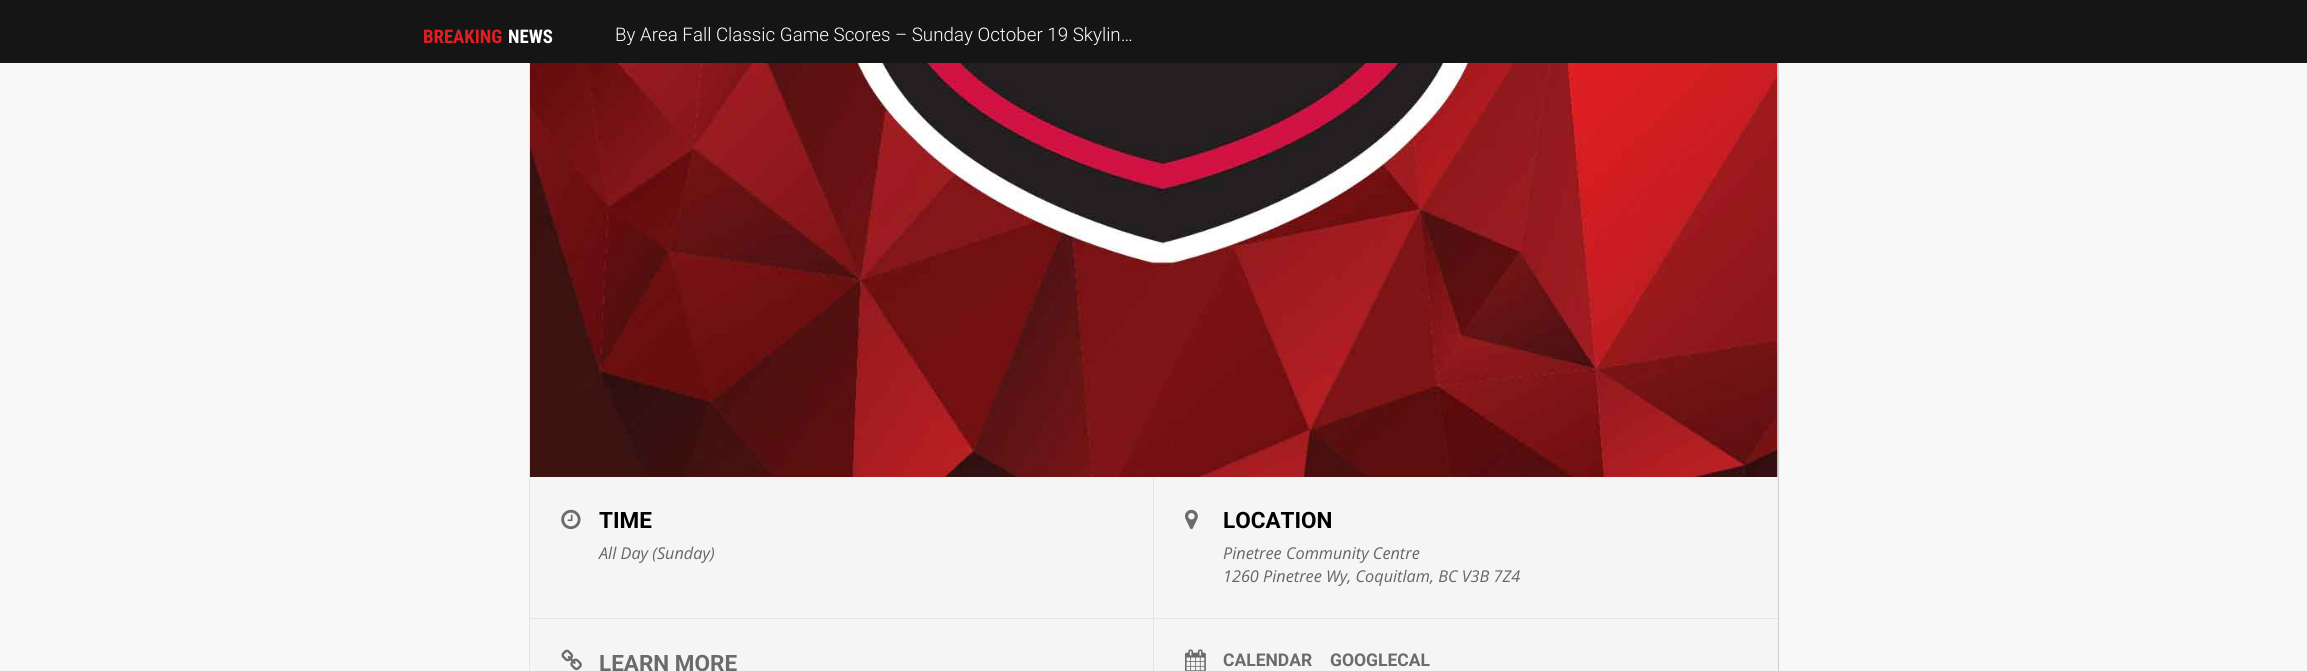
#include <cairo/cairo.h>
#include <math.h>
#include <stddef.h>

static cairo_t *cr;

static void rgb(unsigned color)
{
	cairo_set_source_rgb(cr, (color >> 16) / 255.0, (color >> 8 & 255) / 255.0, (color & 255) / 255.0);
}

static void image(const char *path, double x, double y, double w, double h)
{
	cairo_surface_t *image = cairo_image_surface_create_from_png(path);
	cairo_save(cr);
	cairo_set_source_surface(cr, image, x, y);
	cairo_rectangle(cr, x, y, w, h);
	cairo_fill(cr);
	cairo_restore(cr);
	cairo_surface_destroy(image);
}

int main(void) {
	cairo_surface_t *surface = cairo_image_surface_create(CAIRO_FORMAT_RGB24, 2307, 671);
	cr = cairo_create(surface);
	cairo_font_options_t *options = cairo_font_options_create();
	cairo_font_options_set_hint_metrics(options, CAIRO_HINT_METRICS_OFF);
	cairo_font_options_set_hint_style(options, CAIRO_HINT_STYLE_NONE);
	cairo_set_font_options(cr, options);
	cairo_set_miter_limit(cr, 4);
	rgb(0xf8f8f8);
	cairo_paint(cr);
	rgb(0xcdcdcd);
	cairo_new_path(cr);
	cairo_move_to(cr, 1777, -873);
	cairo_line_to(cr, 1776, -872);
	cairo_curve_to(cr, 1777, -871, 1778, -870, 1778, -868);
	cairo_line_to(cr, 1778, 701);
	cairo_curve_to(cr, 1778, 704, 1776, 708, 1773, 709);
	cairo_curve_to(cr, 1775, 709, 1779, 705, 1779, 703);
	cairo_line_to(cr, 1779, -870);
	cairo_close_path(cr);
	cairo_fill(cr);
	rgb(0xf5f5f5);
	cairo_new_path(cr);
	cairo_move_to(cr, 529, -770);
	cairo_line_to(cr, 1778, -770);
	cairo_line_to(cr, 1778, 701);
	cairo_curve_to(cr, 1778, 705, 1775, 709, 1771, 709);
	cairo_line_to(cr, 536, 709);
	cairo_curve_to(cr, 533, 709, 530, 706, 529, 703);
	cairo_close_path(cr);
	cairo_fill(cr);
	rgb(0xe5e5e5);
	cairo_new_path(cr);
	cairo_move_to(cr, 529, -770);
	cairo_line_to(cr, 530, -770);
	cairo_line_to(cr, 530, 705);
	cairo_line_to(cr, 529, 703);
	cairo_close_path(cr);
	cairo_fill(cr);
	rgb(0x151515);
	cairo_rectangle(cr, 0, 0, 2307, 63);
	cairo_fill(cr);
	image("img/1.png", 530, 63, 1248, 414);
	rgb(0xe5e5e5);
	cairo_rectangle(cr, 530, 618, 1248, 1);
	cairo_fill(cr);
	cairo_rectangle(cr, 1153, 478, 1, 140);
	cairo_fill(cr);
	image("img/2.png", 561, 509, 20, 21);
	image("img/3.png", 1185, 509, 13, 21);
	cairo_rectangle(cr, 1153, 619, 1, 52);
	cairo_fill(cr);
	image("img/4.png", 561, 649, 21, 22);
	image("img/5.png", 1185, 649, 21, 22);
	cairo_select_font_face(cr, "Roboto Condensed", CAIRO_FONT_SLANT_NORMAL, CAIRO_FONT_WEIGHT_BOLD);
	cairo_set_font_size(cr, 18.75);
	rgb(0xe21e22);
	cairo_move_to(cr, 423, 43);
	cairo_show_text(cr, "BREAKING");
	rgb(0xffffff);
	cairo_move_to(cr, 508, 43);
	cairo_show_text(cr, "NEWS");
	cairo_select_font_face(cr, "Roboto Light", CAIRO_FONT_SLANT_NORMAL, CAIRO_FONT_WEIGHT_NORMAL);
	cairo_move_to(cr, 615, 41);
	cairo_show_text(cr, "By Area Fall Classic Game Scores – Sunday October 19 Skylin…");
	cairo_select_font_face(cr, "Roboto", CAIRO_FONT_SLANT_NORMAL, CAIRO_FONT_WEIGHT_BOLD);
	cairo_set_font_size(cr, 22.5);
	rgb(0x000000);
	cairo_move_to(cr, 599, 528);
	cairo_show_text(cr, "TIME");
	cairo_select_font_face(cr, "Open Sans", CAIRO_FONT_SLANT_ITALIC, CAIRO_FONT_WEIGHT_NORMAL);
	cairo_set_font_size(cr, 16.25);
	rgb(0x656565);
	cairo_move_to(cr, 599, 559);
	cairo_show_text(cr, "All Day (Sunday)");
	cairo_select_font_face(cr, "Roboto", CAIRO_FONT_SLANT_NORMAL, CAIRO_FONT_WEIGHT_BOLD);
	cairo_set_font_size(cr, 22.5);
	rgb(0x000000);
	cairo_move_to(cr, 1223, 528);
	cairo_show_text(cr, "LOCATION");
	cairo_select_font_face(cr, "Open Sans", CAIRO_FONT_SLANT_ITALIC, CAIRO_FONT_WEIGHT_NORMAL);
	cairo_set_font_size(cr, 16.25);
	rgb(0x656565);
	cairo_move_to(cr, 1223, 559);
	cairo_show_text(cr, "Pinetree Community Centre");
	cairo_move_to(cr, 1223, 582);
	cairo_show_text(cr, "1260 Pinetree Wy, Coquitlam, BC V3B 7Z4");
	cairo_select_font_face(cr, "Roboto", CAIRO_FONT_SLANT_NORMAL, CAIRO_FONT_WEIGHT_BOLD);
	cairo_set_font_size(cr, 22.5);
	rgb(0x6b6b6b);
	cairo_move_to(cr, 599, 671);
	cairo_show_text(cr, "LEARN MORE");
	cairo_set_font_size(cr, 17.5);
	cairo_move_to(cr, 1223, 666);
	cairo_show_text(cr, "CALENDAR");
	cairo_move_to(cr, 1330, 666);
	cairo_show_text(cr, "GOOGLECAL");
	cairo_surface_write_to_png(surface, "page.png");
	cairo_font_options_destroy(options);
	cairo_destroy(cr);
	cairo_surface_destroy(surface);
	return 0;
}
